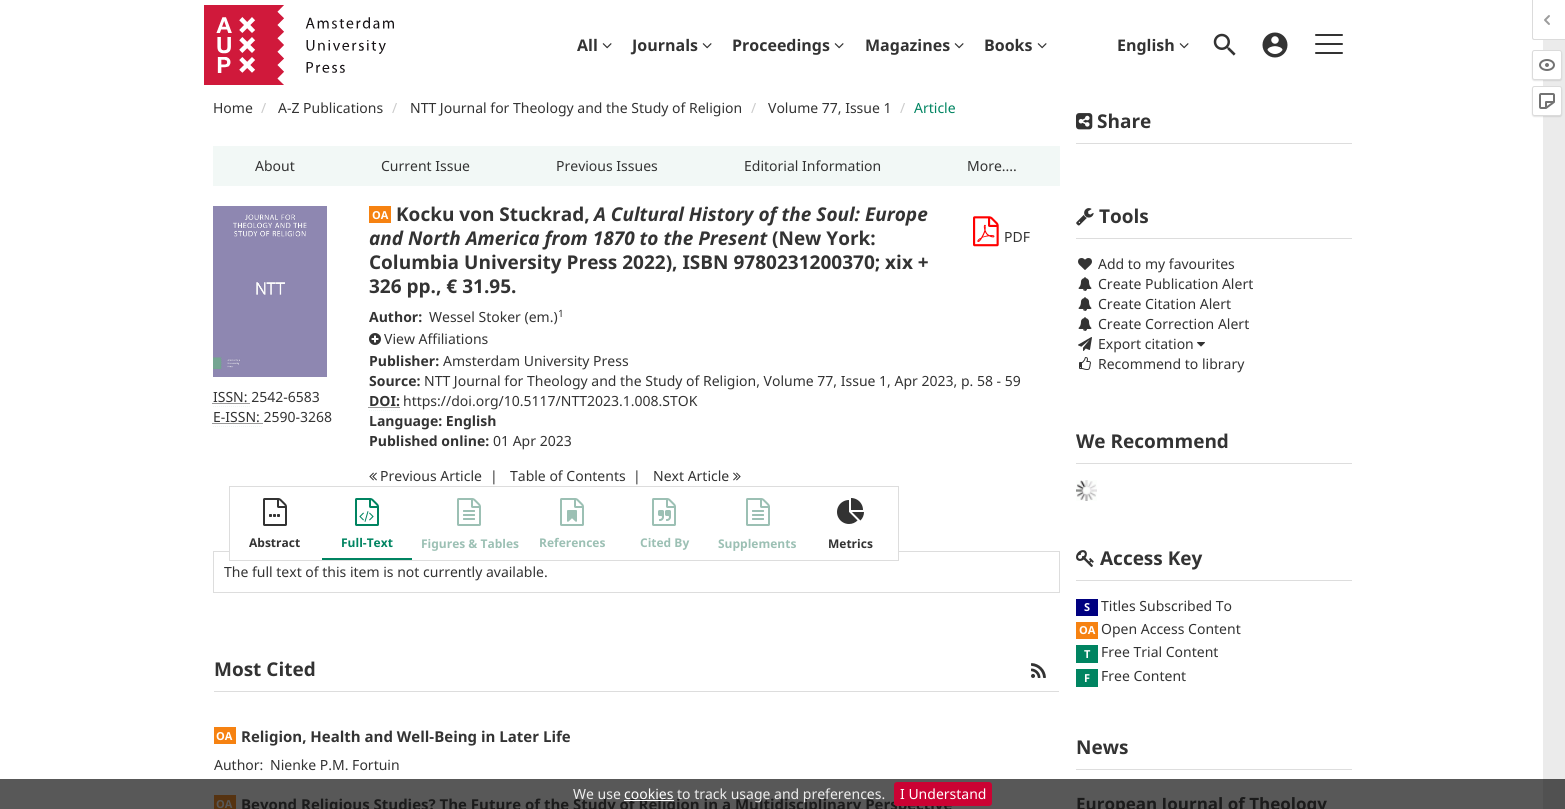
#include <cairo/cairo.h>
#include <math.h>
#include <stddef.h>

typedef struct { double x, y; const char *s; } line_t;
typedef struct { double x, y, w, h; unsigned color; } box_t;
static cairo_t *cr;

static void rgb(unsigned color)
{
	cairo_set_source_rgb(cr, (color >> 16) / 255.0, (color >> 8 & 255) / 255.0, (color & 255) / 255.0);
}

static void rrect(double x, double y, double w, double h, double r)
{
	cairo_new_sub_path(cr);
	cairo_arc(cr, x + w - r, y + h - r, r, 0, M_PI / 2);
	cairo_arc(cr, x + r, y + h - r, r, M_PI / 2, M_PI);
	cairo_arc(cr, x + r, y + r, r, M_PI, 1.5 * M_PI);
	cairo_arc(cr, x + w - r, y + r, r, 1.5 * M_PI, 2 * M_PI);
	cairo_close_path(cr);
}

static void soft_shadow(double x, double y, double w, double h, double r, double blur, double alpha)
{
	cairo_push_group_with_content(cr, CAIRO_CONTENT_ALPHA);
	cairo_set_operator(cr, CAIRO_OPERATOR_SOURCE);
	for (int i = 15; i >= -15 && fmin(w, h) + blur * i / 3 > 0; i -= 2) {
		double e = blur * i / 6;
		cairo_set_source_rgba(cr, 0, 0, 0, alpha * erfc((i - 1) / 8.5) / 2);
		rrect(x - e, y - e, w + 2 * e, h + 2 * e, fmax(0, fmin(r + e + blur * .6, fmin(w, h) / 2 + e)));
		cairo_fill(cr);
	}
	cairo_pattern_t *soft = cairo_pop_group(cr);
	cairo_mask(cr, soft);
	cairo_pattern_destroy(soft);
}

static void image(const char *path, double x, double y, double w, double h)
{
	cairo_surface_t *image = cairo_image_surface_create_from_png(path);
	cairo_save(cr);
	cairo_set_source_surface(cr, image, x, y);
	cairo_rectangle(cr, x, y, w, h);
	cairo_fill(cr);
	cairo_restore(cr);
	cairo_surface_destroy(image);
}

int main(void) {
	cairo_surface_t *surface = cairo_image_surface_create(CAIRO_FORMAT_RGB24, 1565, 809);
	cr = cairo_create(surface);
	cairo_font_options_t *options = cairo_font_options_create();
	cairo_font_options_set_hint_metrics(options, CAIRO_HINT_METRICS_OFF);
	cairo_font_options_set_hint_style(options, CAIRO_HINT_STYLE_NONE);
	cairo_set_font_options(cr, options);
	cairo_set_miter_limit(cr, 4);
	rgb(0xffffff);
	cairo_paint(cr);
	{
		static const box_t items[] = {
			{1543, 40, 22, 739, 0xebebeb},
			{0, 779, 1543, 30, 0x585858},
			{1543, 779, 22, 30, 0x515151},
		};
		for (size_t i = 0; i < sizeof items / sizeof *items; i++) {
			rgb(items[i].color);
			cairo_rectangle(cr, items[i].x, items[i].y, items[i].w, items[i].h);
			cairo_fill(cr);
		}
	}
	image("img/1.png", 204, 5, 190, 80);
	image("img/2.png", 602, 43, 10, 6);
	image("img/2.png", 702, 43, 10, 6);
	image("img/2.png", 834, 43, 10, 6);
	image("img/2.png", 954, 43, 10, 6);
	image("img/2.png", 1037, 43, 10, 6);
	image("img/2.png", 1179, 43, 10, 6);
	image("img/3.png", 1213, 33, 23, 23);
	image("img/4.png", 1262, 32, 26, 26);
	rgb(0x333333);
	rrect(1315, 34, 28, 2, 1);
	cairo_fill(cr);
	rrect(1315, 43, 28, 2, 1);
	cairo_fill(cr);
	rrect(1315, 52, 28, 2, 1);
	cairo_fill(cr);
	rgb(0xf2f8f6);
	cairo_rectangle(cr, 213, 146, 847, 40);
	cairo_fill(cr);
	image("img/5.png", 213, 206, 114, 171);
	cairo_new_path(cr);
	cairo_move_to(cr, 213, 406.5);
	cairo_line_to(cr, 251, 406.5);
	cairo_set_line_width(cr, 1);
	cairo_set_dash(cr, (double[]){1, 1}, 2, 0);
	cairo_stroke(cr);
	cairo_new_path(cr);
	cairo_move_to(cr, 212.5, 403.5);
	cairo_line_to(cr, 250.5, 403.5);
	rgb(0x333333);
	cairo_stroke(cr);
	cairo_new_path(cr);
	cairo_move_to(cr, 213, 426.5);
	cairo_line_to(cr, 263, 426.5);
	rgb(0xf2f8f6);
	cairo_stroke(cr);
	cairo_new_path(cr);
	cairo_move_to(cr, 212.5, 423.5);
	cairo_line_to(cr, 263, 423.5);
	rgb(0x333333);
	cairo_stroke(cr);
	rgb(0xf68211);
	cairo_rectangle(cr, 369, 206, 22, 17);
	cairo_fill(cr);
	image("img/6.png", 369, 333, 12, 12);
	cairo_new_path(cr);
	cairo_move_to(cr, 369, 410.5);
	cairo_line_to(cr, 400, 410.5);
	rgb(0xf2f8f6);
	cairo_stroke(cr);
	cairo_new_path(cr);
	cairo_move_to(cr, 368.5, 407.5);
	cairo_line_to(cr, 399.5, 407.5);
	rgb(0x333333);
	cairo_stroke(cr);
	image("img/7.png", 973, 216, 26, 31);
	image("img/8.png", 369, 472, 8, 9);
	image("img/9.png", 733, 472, 8, 9);
	cairo_rectangle(cr, 213.5, 551.5, 846, 41);
	rgb(0xdddddd);
	cairo_set_dash(cr, NULL, 0, 0);
	cairo_stroke(cr);
	rgb(0xffffff);
	cairo_rectangle(cr, 230, 551, 668, 1);
	cairo_fill(cr);
	cairo_rectangle(cr, 229.5, 486.5, 669, 74);
	rgb(0xdddddd);
	cairo_stroke(cr);
	image("img/11.png", 269, 514, 11, 3);
	image("img/10.png", 263, 498, 24, 28);
	rgb(0x008461);
	cairo_rectangle(cr, 322, 558, 90, 2);
	cairo_fill(cr);
	image("img/13.png", 359, 511, 15, 11);
	image("img/12.png", 355, 498, 24, 28);
	image("img/14.png", 457, 498, 24, 28);
	image("img/16.png", 567, 510, 10, 12);
	image("img/15.png", 560, 498, 24, 28);
	image("img/18.png", 658, 510, 13, 11);
	image("img/17.png", 652, 498, 24, 28);
	image("img/14.png", 746, 498, 24, 28);
	image("img/19.png", 837, 498, 27, 26);
	rgb(0xdddddd);
	cairo_rectangle(cr, 214, 691, 845, 1);
	cairo_fill(cr);
	image("img/20.png", 1031, 663, 15, 15);
	{
		static const box_t items[] = {
			{214, 727, 22, 17, 0xf68211},
			{214, 795, 22, 14, 0x563311},
			{1076, 143, 276, 1, 0xdddddd},
		};
		for (size_t i = 0; i < sizeof items / sizeof *items; i++) {
			rgb(items[i].color);
			cairo_rectangle(cr, items[i].x, items[i].y, items[i].w, items[i].h);
			cairo_fill(cr);
		}
	}
	image("img/21.png", 1076, 113, 17, 17);
	cairo_rectangle(cr, 1076, 238, 276, 1);
	cairo_fill(cr);
	image("img/22.png", 1076, 208, 18, 18);
	image("img/23.png", 1078, 258, 14, 12);
	image("img/24.png", 1078, 277, 14, 14);
	image("img/24.png", 1078, 297, 14, 14);
	image("img/24.png", 1078, 317, 14, 14);
	image("img/25.png", 1078, 337, 14, 14);
	image("img/26.png", 1197, 342, 8, 5);
	image("img/27.png", 1079, 357, 12, 13);
	cairo_rectangle(cr, 1076, 463, 276, 1);
	cairo_fill(cr);
	image("img/28.png", 1076, 480, 21, 21);
	cairo_rectangle(cr, 1076, 580, 276, 1);
	cairo_fill(cr);
	image("img/29.png", 1076, 550, 18, 17);
	{
		static const box_t items[] = {
			{1076, 599, 22, 17, 0x000080},
			{1076, 622, 22, 17, 0xf68211},
			{1076, 645, 22, 18, 0x008461},
			{1076, 669, 22, 18, 0x008461},
			{1076, 769, 276, 1, 0xdddddd},
		};
		for (size_t i = 0; i < sizeof items / sizeof *items; i++) {
			rgb(items[i].color);
			cairo_rectangle(cr, items[i].x, items[i].y, items[i].w, items[i].h);
			cairo_fill(cr);
		}
	}
	rgb(0xdbdbdb);
	cairo_set_fill_rule(cr, CAIRO_FILL_RULE_EVEN_ODD);
	cairo_new_path(cr);
	cairo_move_to(cr, 1532, 0);
	cairo_line_to(cr, 1565, 0);
	cairo_line_to(cr, 1565, 40);
	cairo_line_to(cr, 1534, 40);
	cairo_curve_to(cr, 1533, 40, 1532, 39, 1532, 38);
	cairo_close_path(cr);
	cairo_move_to(cr, 1533, 0);
	cairo_line_to(cr, 1565, 0);
	cairo_line_to(cr, 1565, 39);
	cairo_line_to(cr, 1534, 39);
	cairo_curve_to(cr, 1534, 39, 1533, 38, 1533, 38);
	cairo_close_path(cr);
	cairo_fill(cr);
	image("img/30.png", 1544, 15, 6, 10);
	rgb(0x000000);
	soft_shadow(1532, 51, 30, 30, 2.5, 0.5, 0.1);
	rgb(0xffffff);
	rrect(1532.5, 50.5, 29, 29, 2);
	cairo_fill_preserve(cr);
	rgb(0xdbdbdb);
	cairo_stroke(cr);
	image("img/31.png", 1539, 59, 16, 12);
	rgb(0x000000);
	soft_shadow(1532, 87, 30, 30, 2.5, 0.5, 0.1);
	rgb(0xffffff);
	rrect(1532.5, 86.5, 29, 29, 2);
	cairo_fill_preserve(cr);
	rgb(0xdbdbdb);
	cairo_stroke(cr);
	image("img/32.png", 1539, 93, 16, 16);
	cairo_select_font_face(cr, "Noto Sans", CAIRO_FONT_SLANT_NORMAL, CAIRO_FONT_WEIGHT_BOLD);
	cairo_set_font_size(cr, 16);
	rgb(0x333333);
	{
		static const line_t items[] = {
			{577, 51, "All"},
			{632, 51, "Journals"},
			{732, 51, "Proceedings"},
			{865, 51, "Magazines"},
			{984, 51, "Books"},
			{1117, 51, "English"},
		};
		for (size_t i = 0; i < sizeof items / sizeof *items; i++) {
			cairo_move_to(cr, items[i].x, items[i].y);
			cairo_show_text(cr, items[i].s);
		}
	}
	cairo_select_font_face(cr, "Noto Sans", CAIRO_FONT_SLANT_NORMAL, CAIRO_FONT_WEIGHT_NORMAL);
	cairo_set_font_size(cr, 14);
	cairo_move_to(cr, 213, 113);
	cairo_show_text(cr, "Home");
	rgb(0xcccccc);
	cairo_move_to(cr, 261, 113);
	cairo_show_text(cr, "/");
	rgb(0x333333);
	cairo_move_to(cr, 278, 113);
	cairo_show_text(cr, "A-Z Publications");
	rgb(0xcccccc);
	cairo_move_to(cr, 392, 113);
	cairo_show_text(cr, "/");
	rgb(0x333333);
	cairo_move_to(cr, 410, 113);
	cairo_show_text(cr, "NTT Journal for Theology and the Study of Religion");
	rgb(0xcccccc);
	cairo_move_to(cr, 751, 113);
	cairo_show_text(cr, "/");
	rgb(0x333333);
	cairo_move_to(cr, 768, 113);
	cairo_show_text(cr, "Volume 77, Issue 1");
	rgb(0xcccccc);
	cairo_move_to(cr, 900, 113);
	cairo_show_text(cr, "/");
	rgb(0x008461);
	cairo_move_to(cr, 914, 113);
	cairo_show_text(cr, "Article");
	rgb(0x333333);
	{
		static const line_t items[] = {
			{255, 171, "About"},
			{381, 171, "Current Issue"},
			{556, 171, "Previous Issues"},
			{744, 171, "Editorial Information"},
			{967, 171, "More...."},
			{213, 402, "ISSN: 2542-6583"},
			{213, 422, "E-ISSN: 2590-3268"},
		};
		for (size_t i = 0; i < sizeof items / sizeof *items; i++) {
			cairo_move_to(cr, items[i].x, items[i].y);
			cairo_show_text(cr, items[i].s);
		}
	}
	cairo_select_font_face(cr, "Noto Sans", CAIRO_FONT_SLANT_NORMAL, CAIRO_FONT_WEIGHT_BOLD);
	cairo_set_font_size(cr, 11);
	rgb(0xffffff);
	cairo_move_to(cr, 372, 219);
	cairo_show_text(cr, "OA");
	cairo_set_font_size(cr, 19);
	rgb(0x333333);
	cairo_move_to(cr, 396, 221);
	cairo_show_text(cr, "Kocku von Stuckrad,");
	cairo_select_font_face(cr, "Noto Sans", CAIRO_FONT_SLANT_ITALIC, CAIRO_FONT_WEIGHT_BOLD);
	cairo_move_to(cr, 594, 221);
	cairo_show_text(cr, "A Cultural History of the Soul: Europe");
	cairo_move_to(cr, 369, 245);
	cairo_show_text(cr, "and North America from 1870 to the Present");
	cairo_select_font_face(cr, "Noto Sans", CAIRO_FONT_SLANT_NORMAL, CAIRO_FONT_WEIGHT_BOLD);
	{
		static const line_t items[] = {
			{772, 245, "(New York:"},
			{369, 269, "Columbia University Press 2022), ISBN 9780231200370; xix +"},
			{369, 293, "326 pp., € 31.95."},
		};
		for (size_t i = 0; i < sizeof items / sizeof *items; i++) {
			cairo_move_to(cr, items[i].x, items[i].y);
			cairo_show_text(cr, items[i].s);
		}
	}
	cairo_set_font_size(cr, 14);
	cairo_move_to(cr, 369, 322);
	cairo_show_text(cr, "Author:");
	cairo_select_font_face(cr, "Noto Sans", CAIRO_FONT_SLANT_NORMAL, CAIRO_FONT_WEIGHT_NORMAL);
	cairo_move_to(cr, 429, 322);
	cairo_show_text(cr, "Wessel Stoker (em.)");
	cairo_set_font_size(cr, 10);
	cairo_move_to(cr, 558, 317);
	cairo_show_text(cr, "1");
	cairo_set_font_size(cr, 14);
	cairo_move_to(cr, 384, 344);
	cairo_show_text(cr, "View Affiliations");
	cairo_select_font_face(cr, "Noto Sans", CAIRO_FONT_SLANT_NORMAL, CAIRO_FONT_WEIGHT_BOLD);
	cairo_move_to(cr, 369, 366);
	cairo_show_text(cr, "Publisher:");
	cairo_select_font_face(cr, "Noto Sans", CAIRO_FONT_SLANT_NORMAL, CAIRO_FONT_WEIGHT_NORMAL);
	cairo_move_to(cr, 443, 366);
	cairo_show_text(cr, "Amsterdam University Press");
	cairo_select_font_face(cr, "Noto Sans", CAIRO_FONT_SLANT_NORMAL, CAIRO_FONT_WEIGHT_BOLD);
	cairo_move_to(cr, 369, 386);
	cairo_show_text(cr, "Source:");
	cairo_select_font_face(cr, "Noto Sans", CAIRO_FONT_SLANT_NORMAL, CAIRO_FONT_WEIGHT_NORMAL);
	cairo_move_to(cr, 424, 386);
	cairo_show_text(cr, "NTT Journal for Theology and the Study of Religion, Volume 77, Issue 1, Apr 2023, p. 58 - 59");
	cairo_select_font_face(cr, "Noto Sans", CAIRO_FONT_SLANT_NORMAL, CAIRO_FONT_WEIGHT_BOLD);
	cairo_move_to(cr, 369, 406);
	cairo_show_text(cr, "DOI:");
	cairo_select_font_face(cr, "Noto Sans", CAIRO_FONT_SLANT_NORMAL, CAIRO_FONT_WEIGHT_NORMAL);
	cairo_move_to(cr, 403, 406);
	cairo_show_text(cr, "https://doi.org/10.5117/NTT2023.1.008.STOK");
	cairo_select_font_face(cr, "Noto Sans", CAIRO_FONT_SLANT_NORMAL, CAIRO_FONT_WEIGHT_BOLD);
	cairo_move_to(cr, 369, 426);
	cairo_show_text(cr, "Language: English");
	cairo_move_to(cr, 369, 446);
	cairo_show_text(cr, "Published online:");
	cairo_select_font_face(cr, "Noto Sans", CAIRO_FONT_SLANT_NORMAL, CAIRO_FONT_WEIGHT_NORMAL);
	{
		static const line_t items[] = {
			{493, 446, "01 Apr 2023"},
			{1004, 242, "PDF"},
			{380, 481, "Previous Article"},
			{490, 481, "|"},
			{510, 481, "Table of Contents"},
			{633, 481, "|"},
			{653, 481, "Next Article"},
		};
		for (size_t i = 0; i < sizeof items / sizeof *items; i++) {
			cairo_move_to(cr, items[i].x, items[i].y);
			cairo_show_text(cr, items[i].s);
		}
	}
	cairo_select_font_face(cr, "Noto Sans", CAIRO_FONT_SLANT_NORMAL, CAIRO_FONT_WEIGHT_BOLD);
	cairo_set_font_size(cr, 12);
	cairo_move_to(cr, 249, 547);
	cairo_show_text(cr, "Abstract");
	rgb(0x008461);
	cairo_move_to(cr, 341, 547);
	cairo_show_text(cr, "Full-Text");
	rgb(0x9cc0b4);
	{
		static const line_t items[] = {
			{421, 548, "Figures & Tables"},
			{539, 547, "References"},
			{640, 547, "Cited By"},
			{718, 548, "Supplements"},
		};
		for (size_t i = 0; i < sizeof items / sizeof *items; i++) {
			cairo_move_to(cr, items[i].x, items[i].y);
			cairo_show_text(cr, items[i].s);
		}
	}
	rgb(0x333333);
	cairo_move_to(cr, 828, 548);
	cairo_show_text(cr, "Metrics");
	cairo_select_font_face(cr, "Noto Sans", CAIRO_FONT_SLANT_NORMAL, CAIRO_FONT_WEIGHT_NORMAL);
	cairo_set_font_size(cr, 14);
	cairo_move_to(cr, 224, 577);
	cairo_show_text(cr, "The full text of this item is not currently available.");
	cairo_select_font_face(cr, "Noto Sans", CAIRO_FONT_SLANT_NORMAL, CAIRO_FONT_WEIGHT_BOLD);
	cairo_set_font_size(cr, 19);
	cairo_move_to(cr, 214, 676);
	cairo_show_text(cr, "Most Cited");
	cairo_set_font_size(cr, 11);
	rgb(0xffffff);
	cairo_move_to(cr, 216, 740);
	cairo_show_text(cr, "OA");
	cairo_set_font_size(cr, 15);
	rgb(0x333333);
	cairo_move_to(cr, 241, 742);
	cairo_show_text(cr, "Religion, Health and Well-Being in Later Life");
	cairo_select_font_face(cr, "Noto Sans", CAIRO_FONT_SLANT_NORMAL, CAIRO_FONT_WEIGHT_NORMAL);
	cairo_set_font_size(cr, 14);
	cairo_move_to(cr, 214, 770);
	cairo_show_text(cr, "Author:");
	cairo_move_to(cr, 270, 770);
	cairo_show_text(cr, "Nienke P.M. Fortuin");
	cairo_select_font_face(cr, "Noto Sans", CAIRO_FONT_SLANT_NORMAL, CAIRO_FONT_WEIGHT_BOLD);
	cairo_set_font_size(cr, 11);
	rgb(0x585858);
	cairo_move_to(cr, 216, 808);
	cairo_show_text(cr, "OA");
	cairo_set_font_size(cr, 15);
	rgb(0x1b1b1b);
	cairo_move_to(cr, 241, 810);
	cairo_show_text(cr, "Beyond Religious Studies? The Future of the Study of Religion in a Multidisciplinary Perspective");
	cairo_set_font_size(cr, 19);
	rgb(0x333333);
	cairo_move_to(cr, 1097, 128);
	cairo_show_text(cr, "Share");
	cairo_move_to(cr, 1099, 223);
	cairo_show_text(cr, "Tools");
	cairo_select_font_face(cr, "Noto Sans", CAIRO_FONT_SLANT_NORMAL, CAIRO_FONT_WEIGHT_NORMAL);
	cairo_set_font_size(cr, 14);
	{
		static const line_t items[] = {
			{1098, 269, "Add to my favourites"},
			{1098, 289, "Create Publication Alert"},
			{1098, 309, "Create Citation Alert"},
			{1098, 329, "Create Correction Alert"},
			{1098, 349, "Export citation"},
			{1098, 369, "Recommend to library"},
		};
		for (size_t i = 0; i < sizeof items / sizeof *items; i++) {
			cairo_move_to(cr, items[i].x, items[i].y);
			cairo_show_text(cr, items[i].s);
		}
	}
	cairo_select_font_face(cr, "Noto Sans", CAIRO_FONT_SLANT_NORMAL, CAIRO_FONT_WEIGHT_BOLD);
	cairo_set_font_size(cr, 19);
	cairo_move_to(cr, 1076, 448);
	cairo_show_text(cr, "We Recommend");
	cairo_move_to(cr, 1100, 565);
	cairo_show_text(cr, "Access Key");
	cairo_set_font_size(cr, 11);
	rgb(0xffffff);
	cairo_move_to(cr, 1084, 611);
	cairo_show_text(cr, "S");
	cairo_select_font_face(cr, "Noto Sans", CAIRO_FONT_SLANT_NORMAL, CAIRO_FONT_WEIGHT_NORMAL);
	cairo_set_font_size(cr, 14);
	rgb(0x333333);
	cairo_move_to(cr, 1101, 611);
	cairo_show_text(cr, "Titles Subscribed To");
	cairo_select_font_face(cr, "Noto Sans", CAIRO_FONT_SLANT_NORMAL, CAIRO_FONT_WEIGHT_BOLD);
	cairo_set_font_size(cr, 11);
	rgb(0xffffff);
	cairo_move_to(cr, 1079, 634);
	cairo_show_text(cr, "OA");
	cairo_select_font_face(cr, "Noto Sans", CAIRO_FONT_SLANT_NORMAL, CAIRO_FONT_WEIGHT_NORMAL);
	cairo_set_font_size(cr, 14);
	rgb(0x333333);
	cairo_move_to(cr, 1101, 634);
	cairo_show_text(cr, "Open Access Content");
	cairo_select_font_face(cr, "Noto Sans", CAIRO_FONT_SLANT_NORMAL, CAIRO_FONT_WEIGHT_BOLD);
	cairo_set_font_size(cr, 11);
	rgb(0xffffff);
	cairo_move_to(cr, 1084, 658);
	cairo_show_text(cr, "T");
	cairo_select_font_face(cr, "Noto Sans", CAIRO_FONT_SLANT_NORMAL, CAIRO_FONT_WEIGHT_NORMAL);
	cairo_set_font_size(cr, 14);
	rgb(0x333333);
	cairo_move_to(cr, 1101, 657);
	cairo_show_text(cr, "Free Trial Content");
	cairo_select_font_face(cr, "Noto Sans", CAIRO_FONT_SLANT_NORMAL, CAIRO_FONT_WEIGHT_BOLD);
	cairo_set_font_size(cr, 11);
	rgb(0xffffff);
	cairo_move_to(cr, 1084, 682);
	cairo_show_text(cr, "F");
	cairo_select_font_face(cr, "Noto Sans", CAIRO_FONT_SLANT_NORMAL, CAIRO_FONT_WEIGHT_NORMAL);
	cairo_set_font_size(cr, 14);
	rgb(0x333333);
	cairo_move_to(cr, 1101, 681);
	cairo_show_text(cr, "Free Content");
	cairo_select_font_face(cr, "Noto Sans", CAIRO_FONT_SLANT_NORMAL, CAIRO_FONT_WEIGHT_BOLD);
	cairo_set_font_size(cr, 19);
	cairo_move_to(cr, 1076, 754);
	cairo_show_text(cr, "News");
	cairo_set_font_size(cr, 17);
	rgb(0x1b1b1b);
	cairo_move_to(cr, 1076, 810);
	cairo_show_text(cr, "European Journal of Theology");
	cairo_select_font_face(cr, "Noto Sans", CAIRO_FONT_SLANT_NORMAL, CAIRO_FONT_WEIGHT_NORMAL);
	cairo_set_font_size(cr, 14);
	rgb(0xeeeeee);
	cairo_move_to(cr, 573, 799);
	cairo_show_text(cr, "We use");
	rgb(0xffffff);
	cairo_move_to(cr, 624, 799);
	cairo_show_text(cr, "cookies");
	cairo_rectangle(cr, 624, 800, 50, 1);
	cairo_fill(cr);
	rgb(0xeeeeee);
	cairo_move_to(cr, 677, 799);
	cairo_show_text(cr, "to track usage and preferences.");
	rgb(0xcb0233);
	rrect(894, 782, 98, 24, 3);
	cairo_fill(cr);
	rgb(0xffffff);
	cairo_move_to(cr, 900, 799);
	cairo_show_text(cr, "I Understand");
	cairo_surface_write_to_png(surface, "page.png");
	cairo_font_options_destroy(options);
	cairo_destroy(cr);
	cairo_surface_destroy(surface);
	return 0;
}
